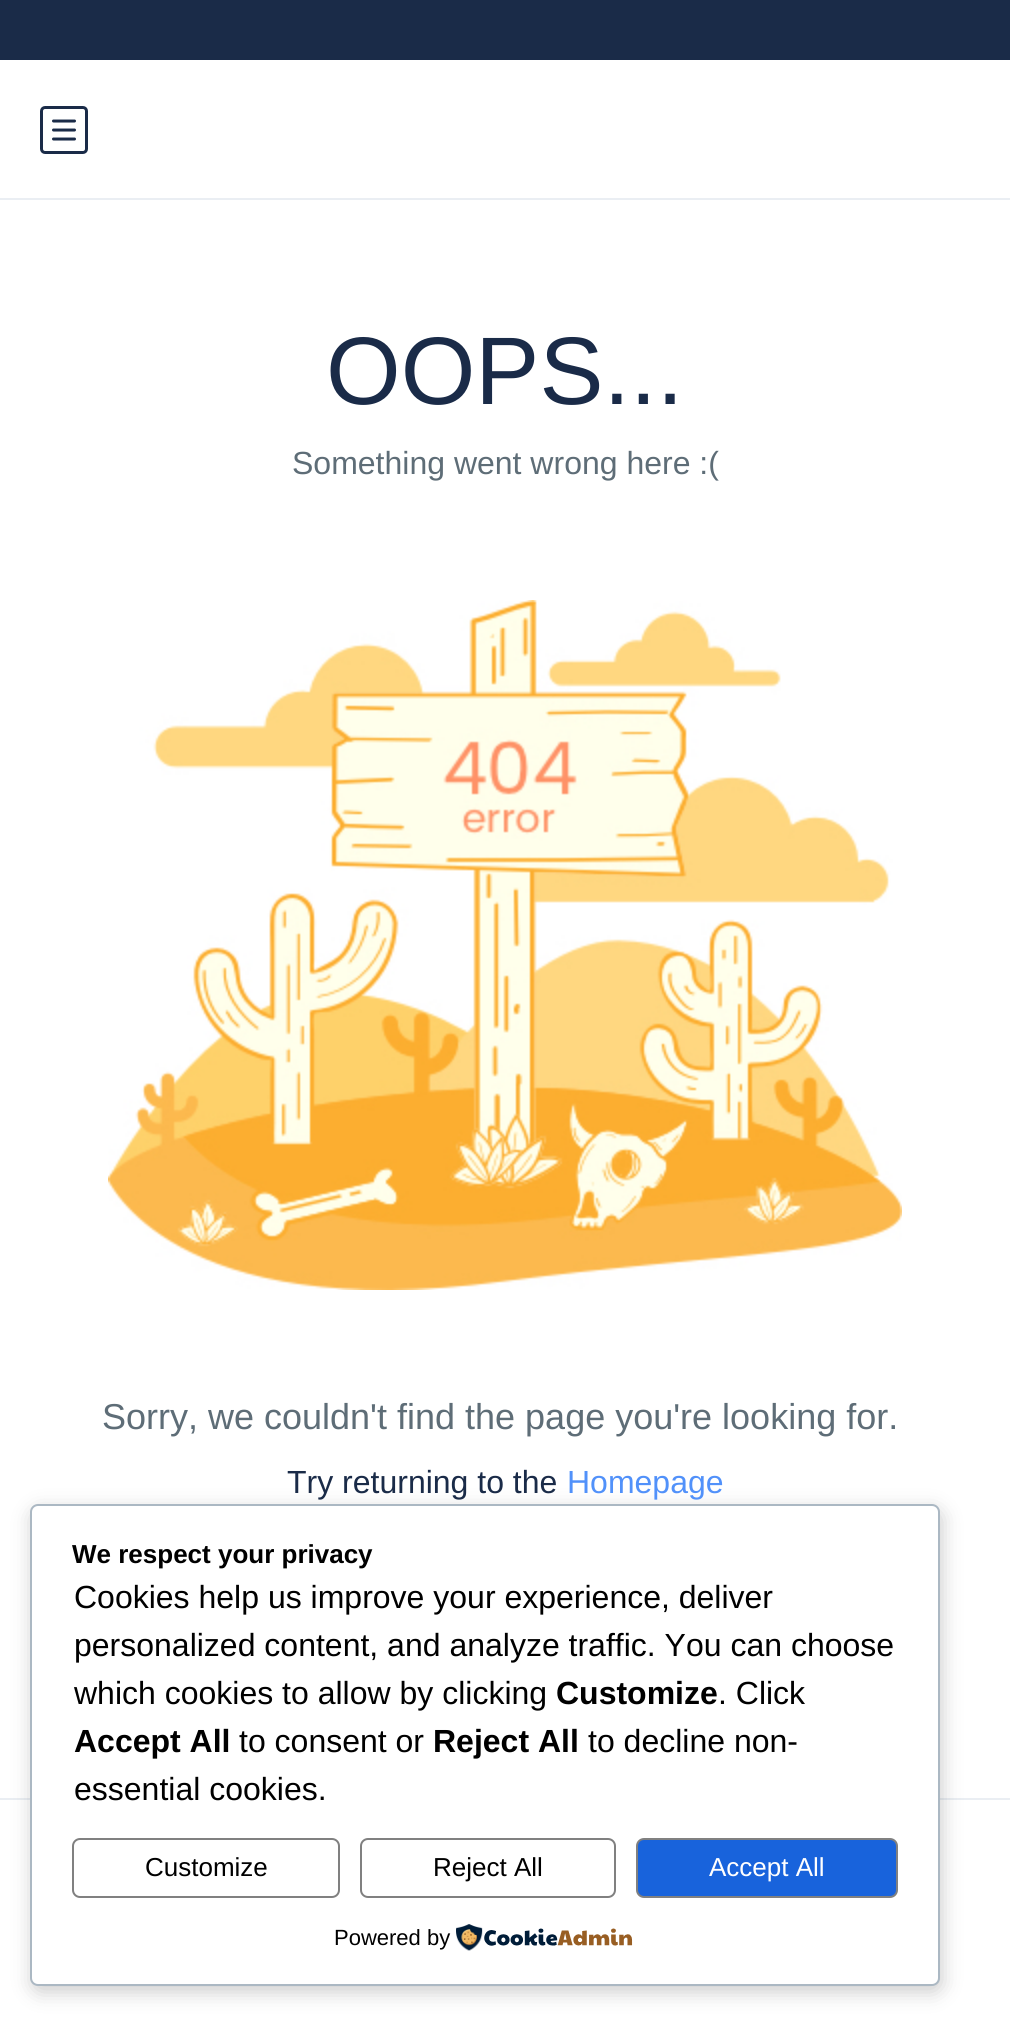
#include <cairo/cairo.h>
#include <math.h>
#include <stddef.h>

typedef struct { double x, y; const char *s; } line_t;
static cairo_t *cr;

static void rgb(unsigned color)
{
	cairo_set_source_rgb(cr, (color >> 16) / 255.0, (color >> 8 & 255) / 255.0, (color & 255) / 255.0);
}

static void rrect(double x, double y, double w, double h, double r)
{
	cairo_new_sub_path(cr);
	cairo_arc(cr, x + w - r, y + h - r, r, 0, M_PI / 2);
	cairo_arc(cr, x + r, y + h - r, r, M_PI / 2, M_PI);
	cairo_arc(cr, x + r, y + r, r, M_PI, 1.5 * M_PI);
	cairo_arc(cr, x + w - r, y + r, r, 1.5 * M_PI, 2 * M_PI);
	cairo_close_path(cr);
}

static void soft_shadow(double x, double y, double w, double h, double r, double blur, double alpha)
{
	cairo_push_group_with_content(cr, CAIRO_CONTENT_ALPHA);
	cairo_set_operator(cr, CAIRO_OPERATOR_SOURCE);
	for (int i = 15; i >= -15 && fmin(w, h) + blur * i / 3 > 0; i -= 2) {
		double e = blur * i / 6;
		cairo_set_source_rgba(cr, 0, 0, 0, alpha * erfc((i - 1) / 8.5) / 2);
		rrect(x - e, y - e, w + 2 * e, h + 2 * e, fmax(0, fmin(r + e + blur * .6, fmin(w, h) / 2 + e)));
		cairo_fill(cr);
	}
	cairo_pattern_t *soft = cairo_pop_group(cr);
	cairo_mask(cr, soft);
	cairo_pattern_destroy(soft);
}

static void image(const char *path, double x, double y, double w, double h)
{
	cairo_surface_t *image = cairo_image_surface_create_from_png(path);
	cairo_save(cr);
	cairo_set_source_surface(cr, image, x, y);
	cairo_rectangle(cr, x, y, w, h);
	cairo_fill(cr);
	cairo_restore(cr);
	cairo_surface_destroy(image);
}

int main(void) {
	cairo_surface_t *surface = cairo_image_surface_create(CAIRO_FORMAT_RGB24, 1010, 2025);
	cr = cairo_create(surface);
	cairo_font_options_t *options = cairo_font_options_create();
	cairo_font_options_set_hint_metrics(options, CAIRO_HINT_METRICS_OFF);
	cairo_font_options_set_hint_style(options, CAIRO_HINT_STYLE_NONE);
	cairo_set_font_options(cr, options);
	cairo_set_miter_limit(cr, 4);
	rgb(0xffffff);
	cairo_paint(cr);
	rgb(0x1a2b48);
	cairo_rectangle(cr, 0, 0, 1010, 60);
	cairo_fill(cr);
	rgb(0xeaeef3);
	cairo_rectangle(cr, 0, 198, 1010, 2);
	cairo_fill(cr);
	rrect(41.5, 107.5, 45, 45, 3.5);
	rgb(0x1a2b48);
	cairo_set_line_width(cr, 3);
	cairo_stroke(cr);
	cairo_new_path(cr);
	cairo_move_to(cr, 53.5, 121);
	cairo_line_to(cr, 74.5, 121);
	cairo_move_to(cr, 53.5, 130);
	cairo_line_to(cr, 74.5, 130);
	cairo_move_to(cr, 53.5, 139);
	cairo_line_to(cr, 74.5, 139);
	cairo_set_line_cap(cr, CAIRO_LINE_CAP_ROUND);
	cairo_set_line_join(cr, CAIRO_LINE_JOIN_ROUND);
	cairo_stroke(cr);
	image("img/1.png", 108, 600, 794, 690);
	rgb(0xeaeef3);
	cairo_rectangle(cr, 0, 1798, 1010, 2);
	cairo_fill(cr);
	rgb(0x000000);
	soft_shadow(32, 1510, 910, 482, 8, 10, 0.2);
	rgb(0xffffff);
	rrect(31, 1505, 908, 480, 7);
	cairo_fill_preserve(cr);
	rgb(0xabb8c3);
	cairo_set_line_width(cr, 2);
	cairo_set_line_cap(cr, CAIRO_LINE_CAP_BUTT);
	cairo_set_line_join(cr, CAIRO_LINE_JOIN_MITER);
	cairo_stroke(cr);
	rrect(73, 1839, 266, 58, 7);
	rgb(0x808080);
	cairo_stroke(cr);
	rrect(361, 1839, 254, 58, 7);
	cairo_stroke(cr);
	rgb(0x1863dc);
	rrect(637, 1839, 260, 58, 7);
	cairo_fill_preserve(cr);
	rgb(0x808080);
	cairo_stroke(cr);
	image("img/2.png", 456, 1924, 177, 27);
	cairo_select_font_face(cr, "Liberation Sans", CAIRO_FONT_SLANT_NORMAL, CAIRO_FONT_WEIGHT_NORMAL);
	cairo_set_font_size(cr, 96);
	rgb(0x1a2b48);
	cairo_move_to(cr, 326, 404);
	cairo_show_text(cr, "OOPS...");
	cairo_set_font_size(cr, 32);
	rgb(0x5e6d77);
	cairo_move_to(cr, 292, 474);
	cairo_show_text(cr, "Something went wrong here :(");
	cairo_set_font_size(cr, 36);
	cairo_move_to(cr, 102, 1429);
	cairo_show_text(cr, "Sorry, we couldn't find the page you're looking for.");
	cairo_set_font_size(cr, 32);
	rgb(0x1a2b48);
	cairo_move_to(cr, 287, 1493);
	cairo_show_text(cr, "Try returning to the");
	rgb(0x5191fa);
	cairo_move_to(cr, 567, 1493);
	cairo_show_text(cr, "Homepage");
	cairo_select_font_face(cr, "Liberation Sans", CAIRO_FONT_SLANT_NORMAL, CAIRO_FONT_WEIGHT_BOLD);
	cairo_set_font_size(cr, 26);
	rgb(0x000000);
	cairo_move_to(cr, 72, 1563);
	cairo_show_text(cr, "We respect your privacy");
	cairo_select_font_face(cr, "Liberation Sans", CAIRO_FONT_SLANT_NORMAL, CAIRO_FONT_WEIGHT_NORMAL);
	cairo_set_font_size(cr, 32);
	{
		static const line_t items[] = {
			{74, 1608, "Cookies help us improve your experience, deliver"},
			{74, 1656, "personalized content, and analyze traffic. You can choose"},
			{74, 1704, "which cookies to allow by clicking"},
		};
		for (size_t i = 0; i < sizeof items / sizeof *items; i++) {
			cairo_move_to(cr, items[i].x, items[i].y);
			cairo_show_text(cr, items[i].s);
		}
	}
	cairo_select_font_face(cr, "Liberation Sans", CAIRO_FONT_SLANT_NORMAL, CAIRO_FONT_WEIGHT_BOLD);
	cairo_move_to(cr, 556, 1704);
	cairo_show_text(cr, "Customize");
	cairo_select_font_face(cr, "Liberation Sans", CAIRO_FONT_SLANT_NORMAL, CAIRO_FONT_WEIGHT_NORMAL);
	cairo_move_to(cr, 718, 1704);
	cairo_show_text(cr, ". Click");
	cairo_select_font_face(cr, "Liberation Sans", CAIRO_FONT_SLANT_NORMAL, CAIRO_FONT_WEIGHT_BOLD);
	cairo_move_to(cr, 74, 1752);
	cairo_show_text(cr, "Accept All");
	cairo_select_font_face(cr, "Liberation Sans", CAIRO_FONT_SLANT_NORMAL, CAIRO_FONT_WEIGHT_NORMAL);
	cairo_move_to(cr, 239, 1752);
	cairo_show_text(cr, "to consent or");
	cairo_select_font_face(cr, "Liberation Sans", CAIRO_FONT_SLANT_NORMAL, CAIRO_FONT_WEIGHT_BOLD);
	cairo_move_to(cr, 433, 1752);
	cairo_show_text(cr, "Reject All");
	cairo_select_font_face(cr, "Liberation Sans", CAIRO_FONT_SLANT_NORMAL, CAIRO_FONT_WEIGHT_NORMAL);
	cairo_move_to(cr, 588, 1752);
	cairo_show_text(cr, "to decline non-");
	cairo_move_to(cr, 74, 1800);
	cairo_show_text(cr, "essential cookies.");
	cairo_set_font_size(cr, 26);
	cairo_move_to(cr, 145, 1876);
	cairo_show_text(cr, "Customize");
	cairo_move_to(cr, 433, 1876);
	cairo_show_text(cr, "Reject All");
	rgb(0xffffff);
	cairo_move_to(cr, 709, 1876);
	cairo_show_text(cr, "Accept All");
	cairo_set_font_size(cr, 22);
	rgb(0x000000);
	cairo_move_to(cr, 334, 1945);
	cairo_show_text(cr, "Powered by");
	cairo_surface_write_to_png(surface, "page.png");
	cairo_font_options_destroy(options);
	cairo_destroy(cr);
	cairo_surface_destroy(surface);
	return 0;
}
